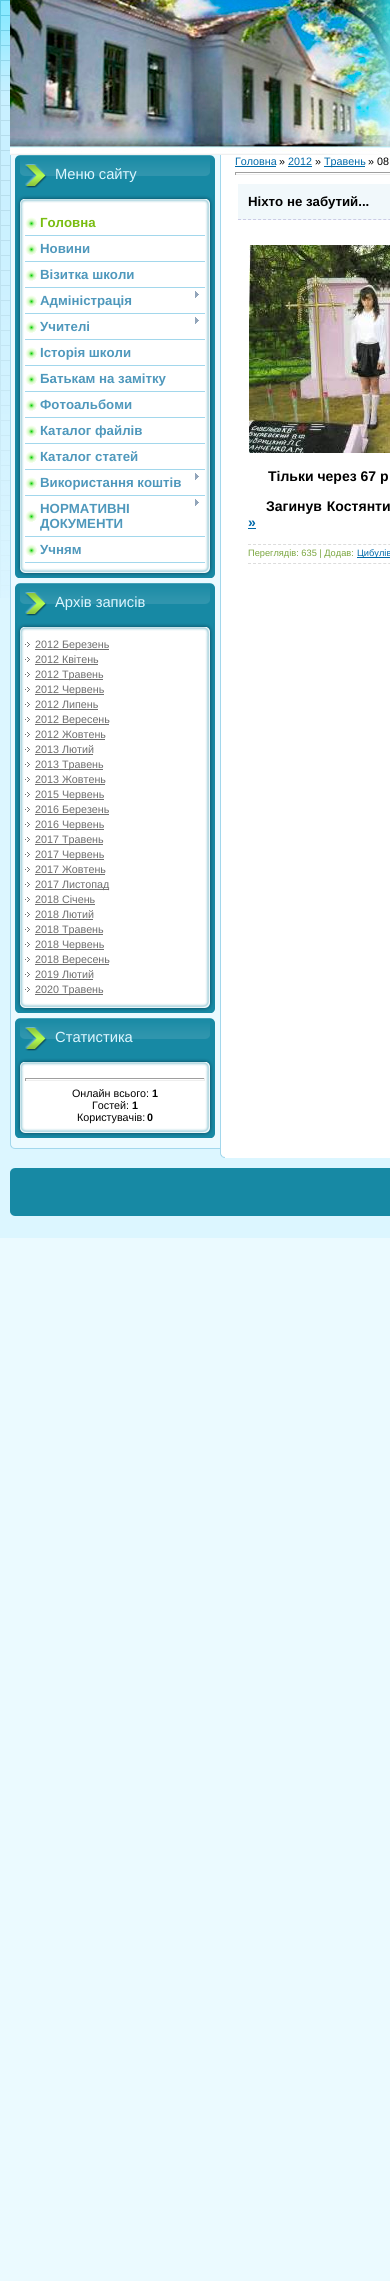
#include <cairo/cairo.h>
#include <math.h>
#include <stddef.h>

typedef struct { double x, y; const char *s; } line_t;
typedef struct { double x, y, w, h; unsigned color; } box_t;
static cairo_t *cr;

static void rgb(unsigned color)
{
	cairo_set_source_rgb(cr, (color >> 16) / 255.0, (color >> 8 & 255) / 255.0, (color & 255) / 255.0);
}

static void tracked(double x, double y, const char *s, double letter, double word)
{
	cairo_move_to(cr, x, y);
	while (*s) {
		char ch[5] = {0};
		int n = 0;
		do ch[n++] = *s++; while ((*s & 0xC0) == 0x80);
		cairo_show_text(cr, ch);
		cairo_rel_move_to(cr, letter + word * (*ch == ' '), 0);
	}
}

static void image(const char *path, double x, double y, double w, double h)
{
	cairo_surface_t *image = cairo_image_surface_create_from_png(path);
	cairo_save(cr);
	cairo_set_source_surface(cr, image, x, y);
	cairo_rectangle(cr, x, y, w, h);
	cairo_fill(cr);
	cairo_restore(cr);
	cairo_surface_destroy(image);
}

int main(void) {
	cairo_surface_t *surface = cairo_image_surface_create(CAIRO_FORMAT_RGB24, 390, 2281);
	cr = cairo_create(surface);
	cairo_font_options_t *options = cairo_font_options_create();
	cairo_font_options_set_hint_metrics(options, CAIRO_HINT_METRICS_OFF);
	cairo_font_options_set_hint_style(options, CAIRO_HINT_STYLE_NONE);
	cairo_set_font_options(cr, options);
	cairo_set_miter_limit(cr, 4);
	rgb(0xebfaff);
	cairo_paint(cr);
	rgb(0xdcf6ff);
	cairo_rectangle(cr, 0, 598, 390, 640);
	cairo_fill(cr);
	image("img/1.png", 0, 0, 10, 598);
	image("img/2.png", 10, 0, 380, 155);
	image("img/3.png", 10, 155, 215, 988);
	image("img/4.png", 15, 195, 200, 383);
	rgb(0x1789a4);
	cairo_rectangle(cr, 15, 188, 200, 7);
	cairo_fill(cr);
	image("img/5.png", 15, 155, 200, 33);
	image("img/6.png", 17, 195, 196, 13);
	image("img/7.png", 25, 217, 12, 12);
	rgb(0xa2d7ec);
	cairo_rectangle(cr, 25, 235, 180, 1);
	cairo_fill(cr);
	image("img/7.png", 25, 243, 12, 12);
	cairo_rectangle(cr, 25, 261, 180, 1);
	cairo_fill(cr);
	image("img/7.png", 25, 269, 12, 12);
	cairo_rectangle(cr, 25, 287, 180, 1);
	cairo_fill(cr);
	image("img/7.png", 25, 295, 12, 12);
	cairo_rectangle(cr, 25, 313, 180, 1);
	cairo_fill(cr);
	image("img/8.png", 195, 291, 4, 7);
	image("img/7.png", 25, 321, 12, 12);
	cairo_rectangle(cr, 25, 339, 180, 1);
	cairo_fill(cr);
	image("img/8.png", 195, 317, 4, 7);
	image("img/7.png", 25, 347, 12, 12);
	cairo_rectangle(cr, 25, 365, 180, 1);
	cairo_fill(cr);
	image("img/7.png", 25, 373, 12, 12);
	cairo_rectangle(cr, 25, 391, 180, 1);
	cairo_fill(cr);
	image("img/7.png", 25, 399, 12, 12);
	cairo_rectangle(cr, 25, 417, 180, 1);
	cairo_fill(cr);
	image("img/7.png", 25, 425, 12, 12);
	cairo_rectangle(cr, 25, 443, 180, 1);
	cairo_fill(cr);
	image("img/7.png", 25, 451, 12, 12);
	cairo_rectangle(cr, 25, 469, 180, 1);
	cairo_fill(cr);
	image("img/7.png", 25, 477, 12, 12);
	cairo_rectangle(cr, 25, 495, 180, 1);
	cairo_fill(cr);
	image("img/8.png", 195, 473, 4, 7);
	image("img/7.png", 25, 510, 12, 12);
	cairo_rectangle(cr, 25, 536, 180, 1);
	cairo_fill(cr);
	image("img/8.png", 195, 499, 4, 7);
	image("img/7.png", 25, 544, 12, 12);
	cairo_rectangle(cr, 25, 562, 180, 1);
	cairo_fill(cr);
	image("img/9.png", 15, 623, 200, 390);
	rgb(0x1789a4);
	cairo_rectangle(cr, 15, 616, 200, 7);
	cairo_fill(cr);
	image("img/5.png", 15, 583, 200, 33);
	image("img/6.png", 17, 623, 196, 13);
	image("img/10.png", 25, 642, 5, 5);
	rgb(0x6e6e6e);
	cairo_rectangle(cr, 35, 649, 74, 1);
	cairo_fill(cr);
	image("img/10.png", 25, 657, 5, 5);
	cairo_rectangle(cr, 35, 664, 63, 1);
	cairo_fill(cr);
	image("img/10.png", 25, 672, 5, 5);
	cairo_rectangle(cr, 35, 679, 68, 1);
	cairo_fill(cr);
	image("img/10.png", 25, 687, 5, 5);
	cairo_rectangle(cr, 35, 694, 69, 1);
	cairo_fill(cr);
	image("img/10.png", 25, 702, 5, 5);
	cairo_rectangle(cr, 35, 709, 63, 1);
	cairo_fill(cr);
	image("img/10.png", 25, 717, 5, 5);
	cairo_rectangle(cr, 35, 724, 74, 1);
	cairo_fill(cr);
	image("img/10.png", 25, 732, 5, 5);
	cairo_rectangle(cr, 35, 739, 70, 1);
	cairo_fill(cr);
	image("img/10.png", 25, 747, 5, 5);
	cairo_rectangle(cr, 35, 754, 58, 1);
	cairo_fill(cr);
	image("img/10.png", 25, 762, 5, 5);
	cairo_rectangle(cr, 35, 769, 68, 1);
	cairo_fill(cr);
	image("img/10.png", 25, 777, 5, 5);
	cairo_rectangle(cr, 35, 784, 70, 1);
	cairo_fill(cr);
	image("img/10.png", 25, 792, 5, 5);
	cairo_rectangle(cr, 35, 799, 69, 1);
	cairo_fill(cr);
	image("img/10.png", 25, 807, 5, 5);
	cairo_rectangle(cr, 35, 814, 74, 1);
	cairo_fill(cr);
	image("img/10.png", 25, 822, 5, 5);
	cairo_rectangle(cr, 35, 829, 69, 1);
	cairo_fill(cr);
	image("img/10.png", 25, 837, 5, 5);
	cairo_rectangle(cr, 35, 844, 68, 1);
	cairo_fill(cr);
	image("img/10.png", 25, 852, 5, 5);
	cairo_rectangle(cr, 35, 859, 69, 1);
	cairo_fill(cr);
	image("img/10.png", 25, 867, 5, 5);
	cairo_rectangle(cr, 35, 874, 70, 1);
	cairo_fill(cr);
	image("img/10.png", 25, 882, 5, 5);
	cairo_rectangle(cr, 35, 889, 74, 1);
	cairo_fill(cr);
	image("img/10.png", 25, 897, 5, 5);
	cairo_rectangle(cr, 35, 904, 60, 1);
	cairo_fill(cr);
	image("img/10.png", 25, 912, 5, 5);
	cairo_rectangle(cr, 35, 919, 58, 1);
	cairo_fill(cr);
	image("img/10.png", 25, 927, 5, 5);
	cairo_rectangle(cr, 35, 934, 68, 1);
	cairo_fill(cr);
	image("img/10.png", 25, 942, 5, 5);
	cairo_rectangle(cr, 35, 949, 69, 1);
	cairo_fill(cr);
	image("img/10.png", 25, 957, 5, 5);
	cairo_rectangle(cr, 35, 964, 74, 1);
	cairo_fill(cr);
	image("img/10.png", 25, 972, 5, 5);
	cairo_rectangle(cr, 35, 979, 58, 1);
	cairo_fill(cr);
	image("img/10.png", 25, 987, 5, 5);
	cairo_rectangle(cr, 35, 994, 68, 1);
	cairo_fill(cr);
	image("img/11.png", 15, 1058, 200, 80);
	rgb(0x1789a4);
	cairo_rectangle(cr, 15, 1051, 200, 7);
	cairo_fill(cr);
	image("img/5.png", 15, 1018, 200, 33);
	image("img/6.png", 17, 1058, 196, 13);
	{
		static const box_t items[] = {
			{25, 1078, 180, 1, 0x9f9f9f},
			{204, 1078, 1, 3, 0xeeeeee},
			{25, 1080, 180, 1, 0xeeeeee},
			{25, 1078, 1, 3, 0x9f9f9f},
			{225, 155, 165, 1003, 0xffffff},
			{235, 166, 41, 1, 0x0069a9},
			{288, 166, 24, 1, 0x0069a9},
			{324, 166, 41, 1, 0x0069a9},
			{235, 172, 155, 1, 0x9f9f9f},
			{235, 174, 155, 1, 0xeeeeee},
			{235, 172, 1, 3, 0x9f9f9f},
			{238, 184, 152, 36, 0xf1f8fb},
		};
		for (size_t i = 0; i < sizeof items / sizeof *items; i++) {
			rgb(items[i].color);
			cairo_rectangle(cr, items[i].x, items[i].y, items[i].w, items[i].h);
			cairo_fill(cr);
		}
	}
	cairo_new_path(cr);
	cairo_move_to(cr, 238, 219.5);
	cairo_line_to(cr, 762, 219.5);
	rgb(0xcbcbe6);
	cairo_set_line_width(cr, 1);
	cairo_set_dash(cr, (double[]){3, 2.01}, 2, 0);
	cairo_stroke(cr);
	image("img/12.png", 249, 245, 141, 208);
	rgb(0x0069a9);
	cairo_rectangle(cr, 248, 528, 8, 1);
	cairo_fill(cr);
	cairo_new_path(cr);
	cairo_move_to(cr, 248, 544.5);
	cairo_line_to(cr, 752, 544.5);
	rgb(0xdddddd);
	cairo_stroke(cr);
	cairo_new_path(cr);
	cairo_move_to(cr, 248, 563.5);
	cairo_line_to(cr, 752, 563.5);
	cairo_stroke(cr);
	rgb(0x0069a9);
	cairo_rectangle(cr, 357, 557, 33, 1);
	cairo_fill(cr);
	image("img/13.png", 10, 1143, 215, 15);
	rgb(0x1789a4);
	cairo_rectangle(cr, 10, 1168, 380, 48);
	cairo_fill(cr);
	image("img/14.png", 10, 1168, 5, 5);
	image("img/15.png", 10, 1211, 5, 5);
	cairo_select_font_face(cr, "Liberation Sans", CAIRO_FONT_SLANT_NORMAL, CAIRO_FONT_WEIGHT_NORMAL);
	cairo_set_font_size(cr, 14.75);
	rgb(0xdcf6ff);
	cairo_move_to(cr, 55, 179);
	cairo_show_text(cr, "Меню сайту");
	cairo_select_font_face(cr, "Liberation Sans", CAIRO_FONT_SLANT_NORMAL, CAIRO_FONT_WEIGHT_BOLD);
	cairo_set_font_size(cr, 13.25);
	rgb(0x79bd11);
	cairo_move_to(cr, 40, 227);
	cairo_show_text(cr, "Головна");
	rgb(0x4f98bc);
	{
		static const line_t items[] = {
			{40, 253, "Новини"},
			{40, 279, "Візитка школи"},
			{40, 305, "Адміністрація"},
			{40, 331, "Учителі"},
			{40, 357, "Історія школи"},
			{40, 383, "Батькам на замітку"},
			{40, 409, "Фотоальбоми"},
			{40, 435, "Каталог файлів"},
			{40, 461, "Каталог статей"},
			{40, 487, "Використання коштів"},
			{40, 513, "НОРМАТИВНІ"},
			{40, 528, "ДОКУМЕНТИ"},
			{40, 554, "Учням"},
		};
		for (size_t i = 0; i < sizeof items / sizeof *items; i++) {
			cairo_move_to(cr, items[i].x, items[i].y);
			cairo_show_text(cr, items[i].s);
		}
	}
	cairo_select_font_face(cr, "Liberation Sans", CAIRO_FONT_SLANT_NORMAL, CAIRO_FONT_WEIGHT_NORMAL);
	cairo_set_font_size(cr, 14.75);
	rgb(0xdcf6ff);
	cairo_move_to(cr, 55, 607);
	cairo_show_text(cr, "Архів записів");
	cairo_set_font_size(cr, 10.75);
	rgb(0x6e6e6e);
	{
		static const line_t items[] = {
			{35, 648, "2012 Березень"},
			{35, 663, "2012 Квітень"},
			{35, 678, "2012 Травень"},
			{35, 693, "2012 Червень"},
			{35, 708, "2012 Липень"},
			{35, 723, "2012 Вересень"},
			{35, 738, "2012 Жовтень"},
			{35, 753, "2013 Лютий"},
			{35, 768, "2013 Травень"},
			{35, 783, "2013 Жовтень"},
			{35, 798, "2015 Червень"},
			{35, 813, "2016 Березень"},
			{35, 828, "2016 Червень"},
			{35, 843, "2017 Травень"},
			{35, 858, "2017 Червень"},
			{35, 873, "2017 Жовтень"},
			{35, 888, "2017 Листопад"},
			{35, 903, "2018 Січень"},
			{35, 918, "2018 Лютий"},
			{35, 933, "2018 Травень"},
			{35, 948, "2018 Червень"},
			{35, 963, "2018 Вересень"},
			{35, 978, "2019 Лютий"},
			{35, 993, "2020 Травень"},
		};
		for (size_t i = 0; i < sizeof items / sizeof *items; i++) {
			cairo_move_to(cr, items[i].x, items[i].y);
			cairo_show_text(cr, items[i].s);
		}
	}
	cairo_set_font_size(cr, 14.75);
	rgb(0xdcf6ff);
	cairo_move_to(cr, 55, 1042);
	cairo_show_text(cr, "Статистика");
	cairo_set_font_size(cr, 10.75);
	rgb(0x000000);
	cairo_move_to(cr, 72, 1097);
	cairo_show_text(cr, "Онлайн всього:");
	cairo_select_font_face(cr, "Liberation Sans", CAIRO_FONT_SLANT_NORMAL, CAIRO_FONT_WEIGHT_BOLD);
	cairo_move_to(cr, 152, 1097);
	cairo_show_text(cr, "1");
	cairo_select_font_face(cr, "Liberation Sans", CAIRO_FONT_SLANT_NORMAL, CAIRO_FONT_WEIGHT_NORMAL);
	cairo_move_to(cr, 92, 1109);
	cairo_show_text(cr, "Гостей:");
	cairo_select_font_face(cr, "Liberation Sans", CAIRO_FONT_SLANT_NORMAL, CAIRO_FONT_WEIGHT_BOLD);
	cairo_move_to(cr, 132, 1109);
	cairo_show_text(cr, "1");
	cairo_select_font_face(cr, "Liberation Sans", CAIRO_FONT_SLANT_NORMAL, CAIRO_FONT_WEIGHT_NORMAL);
	cairo_move_to(cr, 77, 1121);
	cairo_show_text(cr, "Користувачів:");
	cairo_select_font_face(cr, "Liberation Sans", CAIRO_FONT_SLANT_NORMAL, CAIRO_FONT_WEIGHT_BOLD);
	cairo_move_to(cr, 147, 1121);
	cairo_show_text(cr, "0");
	cairo_select_font_face(cr, "Liberation Sans", CAIRO_FONT_SLANT_NORMAL, CAIRO_FONT_WEIGHT_NORMAL);
	rgb(0x0069a9);
	cairo_move_to(cr, 235, 165);
	cairo_show_text(cr, "Головна");
	rgb(0x000000);
	cairo_move_to(cr, 279, 165);
	cairo_show_text(cr, "»");
	rgb(0x0069a9);
	cairo_move_to(cr, 288, 165);
	cairo_show_text(cr, "2012");
	rgb(0x000000);
	cairo_move_to(cr, 315, 165);
	cairo_show_text(cr, "»");
	rgb(0x0069a9);
	cairo_move_to(cr, 324, 165);
	cairo_show_text(cr, "Травень");
	rgb(0x000000);
	cairo_move_to(cr, 368, 165);
	cairo_show_text(cr, "» 08");
	cairo_select_font_face(cr, "Liberation Sans", CAIRO_FONT_SLANT_NORMAL, CAIRO_FONT_WEIGHT_BOLD);
	cairo_set_font_size(cr, 13.25);
	cairo_move_to(cr, 248, 206);
	cairo_show_text(cr, "Ніхто не забутий...");
	cairo_set_font_size(cr, 14);
	cairo_move_to(cr, 268, 481);
	cairo_show_text(cr, "Тільки через 67 р");
	tracked(266, 511, "Загинув Костянти", 0, 1);
	rgb(0x0069a9);
	cairo_move_to(cr, 248, 527);
	cairo_show_text(cr, "»");
	cairo_select_font_face(cr, "Liberation Sans", CAIRO_FONT_SLANT_NORMAL, CAIRO_FONT_WEIGHT_NORMAL);
	cairo_set_font_size(cr, 9.25);
	rgb(0x79a53d);
	cairo_move_to(cr, 248, 556);
	cairo_show_text(cr, "Переглядів: 635 | Додав:");
	rgb(0x0069a9);
	cairo_move_to(cr, 357, 556);
	cairo_show_text(cr, "Цибулів");
	cairo_surface_write_to_png(surface, "page.png");
	cairo_font_options_destroy(options);
	cairo_destroy(cr);
	cairo_surface_destroy(surface);
	return 0;
}
